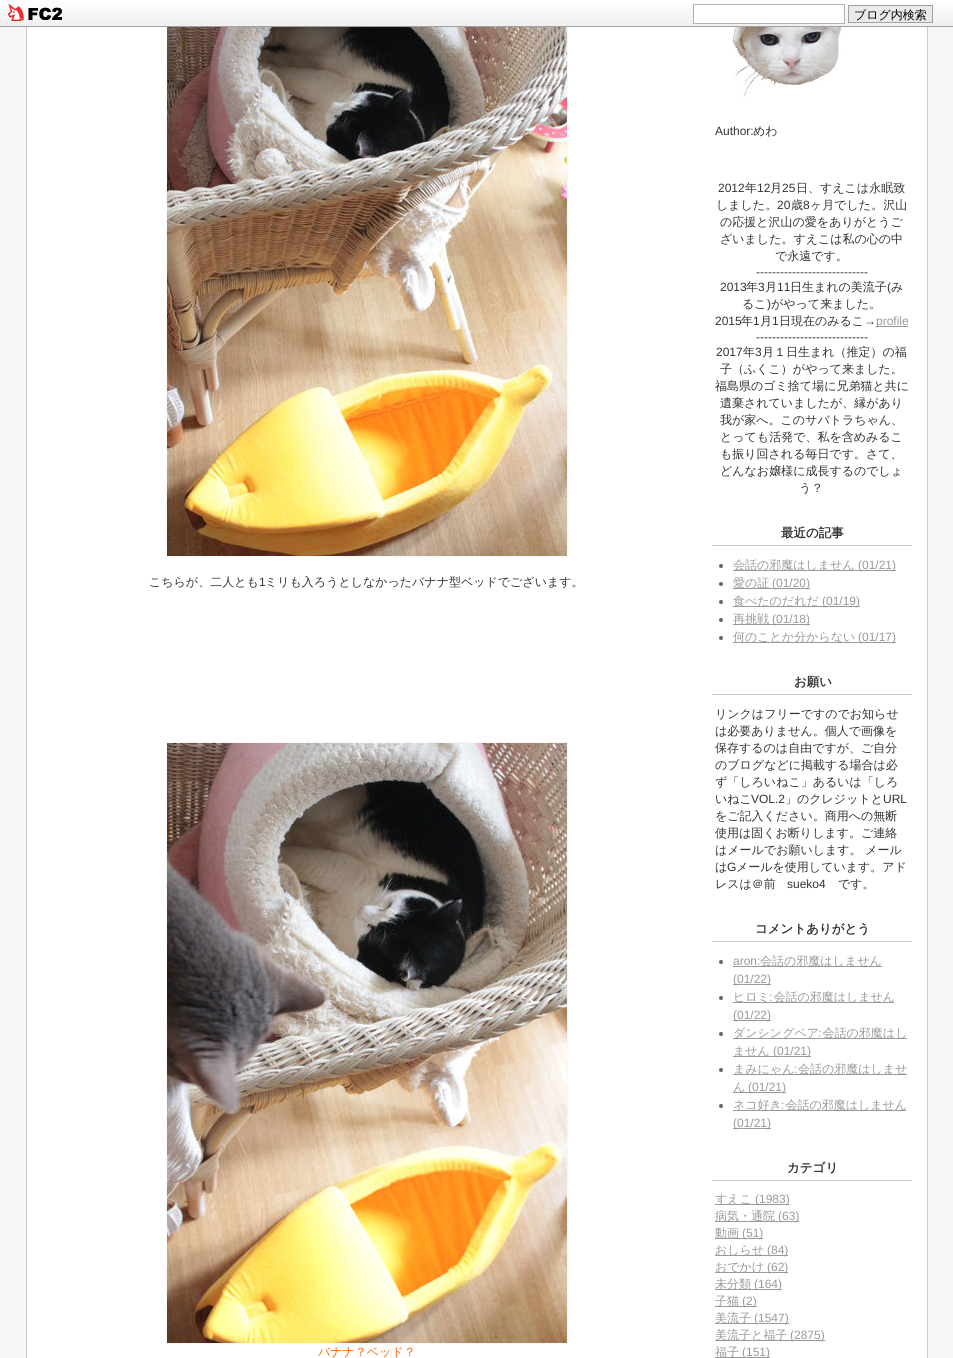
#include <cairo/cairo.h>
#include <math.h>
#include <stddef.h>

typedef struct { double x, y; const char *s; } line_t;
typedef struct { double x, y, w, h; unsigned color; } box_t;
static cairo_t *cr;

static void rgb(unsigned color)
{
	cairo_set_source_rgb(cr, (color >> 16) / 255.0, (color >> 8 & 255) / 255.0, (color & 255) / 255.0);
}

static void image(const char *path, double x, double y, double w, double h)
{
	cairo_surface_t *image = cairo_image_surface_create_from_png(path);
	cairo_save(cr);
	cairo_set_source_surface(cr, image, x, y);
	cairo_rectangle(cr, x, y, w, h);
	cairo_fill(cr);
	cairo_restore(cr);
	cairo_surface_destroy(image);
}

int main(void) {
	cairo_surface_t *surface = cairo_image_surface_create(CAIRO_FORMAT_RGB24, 953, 1358);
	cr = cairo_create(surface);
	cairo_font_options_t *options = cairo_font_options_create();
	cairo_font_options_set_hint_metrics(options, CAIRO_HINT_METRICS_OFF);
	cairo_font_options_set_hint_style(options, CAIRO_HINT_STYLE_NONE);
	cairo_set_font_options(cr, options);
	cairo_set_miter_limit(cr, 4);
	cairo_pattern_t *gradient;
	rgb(0xf7f7f7);
	cairo_paint(cr);
	rgb(0xffffff);
	cairo_rectangle(cr, 27, 27, 900, 1331);
	cairo_fill(cr);
	cairo_rectangle(cr, 166.5, -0.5, 401, 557);
	rgb(0xf7f7f7);
	cairo_set_line_width(cr, 1);
	cairo_stroke(cr);
	gradient = cairo_pattern_create_linear(0, 0, 0, 26);
	cairo_pattern_add_color_stop_rgba(gradient, 0, 1, 1, 1, 1);
	cairo_pattern_add_color_stop_rgba(gradient, 1, 0.941, 0.941, 0.941, 1);
	cairo_set_source(cr, gradient);
	cairo_pattern_destroy(gradient);
	cairo_rectangle(cr, 0, 0, 953, 26);
	cairo_fill(cr);
	rgb(0xa1a1a1);
	cairo_rectangle(cr, 0, 26, 953, 1);
	cairo_fill(cr);
	image("img/1.png", 8, 4, 54, 17);
	rgb(0xffffff);
	cairo_rectangle(cr, 693.5, 4.5, 151, 19);
	cairo_fill_preserve(cr);
	rgb(0xb2b2b2);
	cairo_stroke(cr);
	rgb(0xeaeaea);
	cairo_rectangle(cr, 848.5, 5.5, 84, 17);
	cairo_fill_preserve(cr);
	rgb(0xa1a1a1);
	cairo_stroke(cr);
	rgb(0xcccccc);
	cairo_rectangle(cr, 927, 27, 1, 1331);
	cairo_fill(cr);
	cairo_rectangle(cr, 26, 27, 1, 1331);
	cairo_fill(cr);
	image("img/2.png", 167, 27, 400, 529);
	cairo_rectangle(cr, 166.5, 742.5, 401, 601);
	rgb(0xf7f7f7);
	cairo_stroke(cr);
	image("img/3.png", 167, 743, 400, 600);
	image("img/4.png", 731, 27, 140, 71);
	rgb(0x999999);
	cairo_rectangle(cr, 876, 326, 32, 1);
	cairo_fill(cr);
	rgb(0xcccccc);
	cairo_rectangle(cr, 712, 545, 200, 1);
	cairo_fill(cr);
	rgb(0x666666);
	cairo_arc(cr, 721, 566, 2, 0, 2 * M_PI);
	cairo_fill(cr);
	rgb(0x999999);
	cairo_rectangle(cr, 733, 570, 163, 1);
	cairo_fill(cr);
	rgb(0x666666);
	cairo_arc(cr, 721, 584, 2, 0, 2 * M_PI);
	cairo_fill(cr);
	rgb(0x999999);
	cairo_rectangle(cr, 733, 588, 77, 1);
	cairo_fill(cr);
	rgb(0x666666);
	cairo_arc(cr, 721, 602, 2, 0, 2 * M_PI);
	cairo_fill(cr);
	rgb(0x999999);
	cairo_rectangle(cr, 733, 606, 127, 1);
	cairo_fill(cr);
	rgb(0x666666);
	cairo_arc(cr, 721, 620, 2, 0, 2 * M_PI);
	cairo_fill(cr);
	rgb(0x999999);
	cairo_rectangle(cr, 733, 624, 77, 1);
	cairo_fill(cr);
	rgb(0x666666);
	cairo_arc(cr, 721, 638, 2, 0, 2 * M_PI);
	cairo_fill(cr);
	{
		static const box_t items[] = {
			{733, 642, 163, 1, 0x999999},
			{712, 694, 200, 1, 0xcccccc},
			{712, 941, 200, 1, 0xcccccc},
		};
		for (size_t i = 0; i < sizeof items / sizeof *items; i++) {
			rgb(items[i].color);
			cairo_rectangle(cr, items[i].x, items[i].y, items[i].w, items[i].h);
			cairo_fill(cr);
		}
	}
	rgb(0x666666);
	cairo_arc(cr, 721, 962, 2, 0, 2 * M_PI);
	cairo_fill(cr);
	rgb(0x999999);
	cairo_rectangle(cr, 733, 966, 149, 1);
	cairo_fill(cr);
	cairo_rectangle(cr, 733, 984, 38, 1);
	cairo_fill(cr);
	rgb(0x666666);
	cairo_arc(cr, 721, 998, 2, 0, 2 * M_PI);
	cairo_fill(cr);
	rgb(0x999999);
	cairo_rectangle(cr, 733, 1002, 161, 1);
	cairo_fill(cr);
	cairo_rectangle(cr, 733, 1020, 38, 1);
	cairo_fill(cr);
	rgb(0x666666);
	cairo_arc(cr, 721, 1034, 2, 0, 2 * M_PI);
	cairo_fill(cr);
	rgb(0x999999);
	cairo_rectangle(cr, 733, 1038, 174, 1);
	cairo_fill(cr);
	cairo_rectangle(cr, 733, 1056, 78, 1);
	cairo_fill(cr);
	rgb(0x666666);
	cairo_arc(cr, 721, 1070, 2, 0, 2 * M_PI);
	cairo_fill(cr);
	rgb(0x999999);
	cairo_rectangle(cr, 733, 1074, 174, 1);
	cairo_fill(cr);
	cairo_rectangle(cr, 733, 1092, 53, 1);
	cairo_fill(cr);
	rgb(0x666666);
	cairo_arc(cr, 721, 1106, 2, 0, 2 * M_PI);
	cairo_fill(cr);
	{
		static const box_t items[] = {
			{733, 1110, 173, 1, 0x999999},
			{733, 1128, 38, 1, 0x999999},
			{712, 1180, 200, 1, 0xcccccc},
			{715, 1204, 74, 1, 0x999999},
			{715, 1221, 84, 1, 0x999999},
			{715, 1238, 48, 1, 0x999999},
			{715, 1255, 73, 1, 0x999999},
			{715, 1272, 73, 1, 0x999999},
			{715, 1289, 67, 1, 0x999999},
			{715, 1306, 42, 1, 0x999999},
			{715, 1323, 74, 1, 0x999999},
			{715, 1340, 110, 1, 0x999999},
			{715, 1357, 55, 1, 0x999999},
		};
		for (size_t i = 0; i < sizeof items / sizeof *items; i++) {
			rgb(items[i].color);
			cairo_rectangle(cr, items[i].x, items[i].y, items[i].w, items[i].h);
			cairo_fill(cr);
		}
	}
	cairo_select_font_face(cr, "WenQuanYi Zen Hei Medium", CAIRO_FONT_SLANT_NORMAL, CAIRO_FONT_WEIGHT_NORMAL);
	cairo_set_font_size(cr, 12);
	rgb(0x000000);
	cairo_move_to(cr, 854, 19);
	cairo_show_text(cr, "ブログ内検索");
	rgb(0x333333);
	cairo_move_to(cr, 149, 586);
	cairo_show_text(cr, "こちらが、二人とも");
	cairo_select_font_face(cr, "Liberation Sans", CAIRO_FONT_SLANT_NORMAL, CAIRO_FONT_WEIGHT_NORMAL);
	cairo_move_to(cr, 259, 586);
	cairo_show_text(cr, "1");
	cairo_select_font_face(cr, "WenQuanYi Zen Hei Medium", CAIRO_FONT_SLANT_NORMAL, CAIRO_FONT_WEIGHT_NORMAL);
	cairo_move_to(cr, 265, 586);
	cairo_show_text(cr, "ミリも入ろうとしなかったバナナ型ベッドでございます。");
	rgb(0xff6600);
	cairo_move_to(cr, 318, 1356);
	cairo_show_text(cr, "バナナ？ベッド？");
	cairo_select_font_face(cr, "Liberation Sans", CAIRO_FONT_SLANT_NORMAL, CAIRO_FONT_WEIGHT_NORMAL);
	rgb(0x333333);
	cairo_move_to(cr, 715, 135);
	cairo_show_text(cr, "Author:");
	cairo_select_font_face(cr, "WenQuanYi Zen Hei Medium", CAIRO_FONT_SLANT_NORMAL, CAIRO_FONT_WEIGHT_NORMAL);
	cairo_move_to(cr, 753, 135);
	cairo_show_text(cr, "めわ");
	cairo_select_font_face(cr, "Liberation Sans", CAIRO_FONT_SLANT_NORMAL, CAIRO_FONT_WEIGHT_NORMAL);
	cairo_move_to(cr, 718, 192);
	cairo_show_text(cr, "2012");
	cairo_select_font_face(cr, "WenQuanYi Zen Hei Medium", CAIRO_FONT_SLANT_NORMAL, CAIRO_FONT_WEIGHT_NORMAL);
	cairo_move_to(cr, 745, 192);
	cairo_show_text(cr, "年");
	cairo_select_font_face(cr, "Liberation Sans", CAIRO_FONT_SLANT_NORMAL, CAIRO_FONT_WEIGHT_NORMAL);
	cairo_move_to(cr, 757, 192);
	cairo_show_text(cr, "12");
	cairo_select_font_face(cr, "WenQuanYi Zen Hei Medium", CAIRO_FONT_SLANT_NORMAL, CAIRO_FONT_WEIGHT_NORMAL);
	cairo_move_to(cr, 770, 192);
	cairo_show_text(cr, "月");
	cairo_select_font_face(cr, "Liberation Sans", CAIRO_FONT_SLANT_NORMAL, CAIRO_FONT_WEIGHT_NORMAL);
	cairo_move_to(cr, 782, 192);
	cairo_show_text(cr, "25");
	cairo_select_font_face(cr, "WenQuanYi Zen Hei Medium", CAIRO_FONT_SLANT_NORMAL, CAIRO_FONT_WEIGHT_NORMAL);
	cairo_move_to(cr, 796, 192);
	cairo_show_text(cr, "日、すえこは永眠致");
	cairo_move_to(cr, 716, 209);
	cairo_show_text(cr, "しました。");
	cairo_select_font_face(cr, "Liberation Sans", CAIRO_FONT_SLANT_NORMAL, CAIRO_FONT_WEIGHT_NORMAL);
	cairo_move_to(cr, 777, 209);
	cairo_show_text(cr, "20");
	cairo_select_font_face(cr, "WenQuanYi Zen Hei Medium", CAIRO_FONT_SLANT_NORMAL, CAIRO_FONT_WEIGHT_NORMAL);
	cairo_move_to(cr, 791, 209);
	cairo_show_text(cr, "歳");
	cairo_select_font_face(cr, "Liberation Sans", CAIRO_FONT_SLANT_NORMAL, CAIRO_FONT_WEIGHT_NORMAL);
	cairo_move_to(cr, 803, 209);
	cairo_show_text(cr, "8");
	cairo_select_font_face(cr, "WenQuanYi Zen Hei Medium", CAIRO_FONT_SLANT_NORMAL, CAIRO_FONT_WEIGHT_NORMAL);
	{
		static const line_t items[] = {
			{810, 209, "ヶ月でした。沢山"},
			{720, 226, "の応援と沢山の愛をありがとうご"},
			{720, 243, "ざいました。すえこは私の心の中"},
			{775, 260, "で永遠です。"},
		};
		for (size_t i = 0; i < sizeof items / sizeof *items; i++) {
			cairo_move_to(cr, items[i].x, items[i].y);
			cairo_show_text(cr, items[i].s);
		}
	}
	cairo_select_font_face(cr, "Liberation Sans", CAIRO_FONT_SLANT_NORMAL, CAIRO_FONT_WEIGHT_NORMAL);
	cairo_move_to(cr, 756, 276);
	cairo_show_text(cr, "----------------------------");
	cairo_move_to(cr, 720, 291);
	cairo_show_text(cr, "2013");
	cairo_select_font_face(cr, "WenQuanYi Zen Hei Medium", CAIRO_FONT_SLANT_NORMAL, CAIRO_FONT_WEIGHT_NORMAL);
	cairo_move_to(cr, 746, 291);
	cairo_show_text(cr, "年");
	cairo_select_font_face(cr, "Liberation Sans", CAIRO_FONT_SLANT_NORMAL, CAIRO_FONT_WEIGHT_NORMAL);
	cairo_move_to(cr, 758, 291);
	cairo_show_text(cr, "3");
	cairo_select_font_face(cr, "WenQuanYi Zen Hei Medium", CAIRO_FONT_SLANT_NORMAL, CAIRO_FONT_WEIGHT_NORMAL);
	cairo_move_to(cr, 765, 291);
	cairo_show_text(cr, "月");
	cairo_select_font_face(cr, "Liberation Sans", CAIRO_FONT_SLANT_NORMAL, CAIRO_FONT_WEIGHT_NORMAL);
	cairo_move_to(cr, 777, 291);
	cairo_show_text(cr, "11");
	cairo_select_font_face(cr, "WenQuanYi Zen Hei Medium", CAIRO_FONT_SLANT_NORMAL, CAIRO_FONT_WEIGHT_NORMAL);
	cairo_move_to(cr, 790, 291);
	cairo_show_text(cr, "日生まれの美流子");
	cairo_select_font_face(cr, "Liberation Sans", CAIRO_FONT_SLANT_NORMAL, CAIRO_FONT_WEIGHT_NORMAL);
	cairo_move_to(cr, 887, 291);
	cairo_show_text(cr, "(");
	cairo_select_font_face(cr, "WenQuanYi Zen Hei Medium", CAIRO_FONT_SLANT_NORMAL, CAIRO_FONT_WEIGHT_NORMAL);
	cairo_move_to(cr, 891, 291);
	cairo_show_text(cr, "み");
	cairo_move_to(cr, 742, 308);
	cairo_show_text(cr, "るこ");
	cairo_select_font_face(cr, "Liberation Sans", CAIRO_FONT_SLANT_NORMAL, CAIRO_FONT_WEIGHT_NORMAL);
	cairo_move_to(cr, 767, 308);
	cairo_show_text(cr, ")");
	cairo_select_font_face(cr, "WenQuanYi Zen Hei Medium", CAIRO_FONT_SLANT_NORMAL, CAIRO_FONT_WEIGHT_NORMAL);
	cairo_move_to(cr, 771, 308);
	cairo_show_text(cr, "がやって来ました。");
	cairo_select_font_face(cr, "Liberation Sans", CAIRO_FONT_SLANT_NORMAL, CAIRO_FONT_WEIGHT_NORMAL);
	cairo_move_to(cr, 715, 325);
	cairo_show_text(cr, "2015");
	cairo_select_font_face(cr, "WenQuanYi Zen Hei Medium", CAIRO_FONT_SLANT_NORMAL, CAIRO_FONT_WEIGHT_NORMAL);
	cairo_move_to(cr, 741, 325);
	cairo_show_text(cr, "年");
	cairo_select_font_face(cr, "Liberation Sans", CAIRO_FONT_SLANT_NORMAL, CAIRO_FONT_WEIGHT_NORMAL);
	cairo_move_to(cr, 753, 325);
	cairo_show_text(cr, "1");
	cairo_select_font_face(cr, "WenQuanYi Zen Hei Medium", CAIRO_FONT_SLANT_NORMAL, CAIRO_FONT_WEIGHT_NORMAL);
	cairo_move_to(cr, 760, 325);
	cairo_show_text(cr, "月");
	cairo_select_font_face(cr, "Liberation Sans", CAIRO_FONT_SLANT_NORMAL, CAIRO_FONT_WEIGHT_NORMAL);
	cairo_move_to(cr, 772, 325);
	cairo_show_text(cr, "1");
	cairo_select_font_face(cr, "WenQuanYi Zen Hei Medium", CAIRO_FONT_SLANT_NORMAL, CAIRO_FONT_WEIGHT_NORMAL);
	cairo_move_to(cr, 779, 325);
	cairo_show_text(cr, "日現在のみるこ");
	cairo_select_font_face(cr, "Liberation Sans", CAIRO_FONT_SLANT_NORMAL, CAIRO_FONT_WEIGHT_NORMAL);
	cairo_move_to(cr, 864, 325);
	cairo_show_text(cr, "→");
	rgb(0x999999);
	cairo_move_to(cr, 876, 325);
	cairo_show_text(cr, "profile");
	rgb(0x333333);
	cairo_move_to(cr, 756, 341);
	cairo_show_text(cr, "----------------------------");
	cairo_move_to(cr, 716, 356);
	cairo_show_text(cr, "2017");
	cairo_select_font_face(cr, "WenQuanYi Zen Hei Medium", CAIRO_FONT_SLANT_NORMAL, CAIRO_FONT_WEIGHT_NORMAL);
	cairo_move_to(cr, 743, 356);
	cairo_show_text(cr, "年");
	cairo_select_font_face(cr, "Liberation Sans", CAIRO_FONT_SLANT_NORMAL, CAIRO_FONT_WEIGHT_NORMAL);
	cairo_move_to(cr, 755, 356);
	cairo_show_text(cr, "3");
	cairo_select_font_face(cr, "WenQuanYi Zen Hei Medium", CAIRO_FONT_SLANT_NORMAL, CAIRO_FONT_WEIGHT_NORMAL);
	{
		static const line_t items[] = {
			{762, 356, "月１日生まれ（推定）の福"},
			{720, 373, "子（ふくこ）がやって来ました。"},
			{715, 390, "福島県のゴミ捨て場に兄弟猫と共に"},
			{720, 407, "遺棄されていましたが、縁があり"},
			{720, 424, "我が家へ。このサバトラちゃん、"},
			{720, 441, "とっても活発で、私を含めみるこ"},
			{720, 458, "も振り回される毎日です。さて、"},
			{720, 475, "どんなお嬢様に成長するのでしょ"},
			{799, 492, "う？"},
		};
		for (size_t i = 0; i < sizeof items / sizeof *items; i++) {
			cairo_move_to(cr, items[i].x, items[i].y);
			cairo_show_text(cr, items[i].s);
		}
	}
	cairo_select_font_face(cr, "WenQuanYi Zen Hei", CAIRO_FONT_SLANT_NORMAL, CAIRO_FONT_WEIGHT_BOLD);
	cairo_set_font_size(cr, 12.5);
	cairo_move_to(cr, 781, 537);
	cairo_show_text(cr, "最近の記事");
	cairo_select_font_face(cr, "WenQuanYi Zen Hei Medium", CAIRO_FONT_SLANT_NORMAL, CAIRO_FONT_WEIGHT_NORMAL);
	cairo_set_font_size(cr, 12);
	rgb(0x999999);
	cairo_move_to(cr, 733, 569);
	cairo_show_text(cr, "会話の邪魔はしません");
	cairo_select_font_face(cr, "Liberation Sans", CAIRO_FONT_SLANT_NORMAL, CAIRO_FONT_WEIGHT_NORMAL);
	cairo_move_to(cr, 858, 569);
	cairo_show_text(cr, "(01/21)");
	cairo_select_font_face(cr, "WenQuanYi Zen Hei Medium", CAIRO_FONT_SLANT_NORMAL, CAIRO_FONT_WEIGHT_NORMAL);
	cairo_move_to(cr, 733, 587);
	cairo_show_text(cr, "愛の証");
	cairo_select_font_face(cr, "Liberation Sans", CAIRO_FONT_SLANT_NORMAL, CAIRO_FONT_WEIGHT_NORMAL);
	cairo_move_to(cr, 772, 587);
	cairo_show_text(cr, "(01/20)");
	cairo_select_font_face(cr, "WenQuanYi Zen Hei Medium", CAIRO_FONT_SLANT_NORMAL, CAIRO_FONT_WEIGHT_NORMAL);
	cairo_move_to(cr, 733, 605);
	cairo_show_text(cr, "食べたのだれだ");
	cairo_select_font_face(cr, "Liberation Sans", CAIRO_FONT_SLANT_NORMAL, CAIRO_FONT_WEIGHT_NORMAL);
	cairo_move_to(cr, 822, 605);
	cairo_show_text(cr, "(01/19)");
	cairo_select_font_face(cr, "WenQuanYi Zen Hei Medium", CAIRO_FONT_SLANT_NORMAL, CAIRO_FONT_WEIGHT_NORMAL);
	cairo_move_to(cr, 733, 623);
	cairo_show_text(cr, "再挑戦");
	cairo_select_font_face(cr, "Liberation Sans", CAIRO_FONT_SLANT_NORMAL, CAIRO_FONT_WEIGHT_NORMAL);
	cairo_move_to(cr, 772, 623);
	cairo_show_text(cr, "(01/18)");
	cairo_select_font_face(cr, "WenQuanYi Zen Hei Medium", CAIRO_FONT_SLANT_NORMAL, CAIRO_FONT_WEIGHT_NORMAL);
	cairo_move_to(cr, 733, 641);
	cairo_show_text(cr, "何のことか分からない");
	cairo_select_font_face(cr, "Liberation Sans", CAIRO_FONT_SLANT_NORMAL, CAIRO_FONT_WEIGHT_NORMAL);
	cairo_move_to(cr, 858, 641);
	cairo_show_text(cr, "(01/17)");
	cairo_select_font_face(cr, "WenQuanYi Zen Hei", CAIRO_FONT_SLANT_NORMAL, CAIRO_FONT_WEIGHT_BOLD);
	cairo_set_font_size(cr, 12.5);
	rgb(0x333333);
	cairo_move_to(cr, 794, 686);
	cairo_show_text(cr, "お願い");
	cairo_select_font_face(cr, "WenQuanYi Zen Hei Medium", CAIRO_FONT_SLANT_NORMAL, CAIRO_FONT_WEIGHT_NORMAL);
	cairo_set_font_size(cr, 12);
	{
		static const line_t items[] = {
			{715, 718, "リンクはフリーですのでお知らせ"},
			{715, 735, "は必要ありません。個人で画像を"},
			{715, 752, "保存するのは自由ですが、ご自分"},
			{715, 769, "のブログなどに掲載する場合は必"},
			{715, 786, "ず「しろいねこ」あるいは「しろ"},
			{715, 803, "いねこ"},
		};
		for (size_t i = 0; i < sizeof items / sizeof *items; i++) {
			cairo_move_to(cr, items[i].x, items[i].y);
			cairo_show_text(cr, items[i].s);
		}
	}
	cairo_select_font_face(cr, "Liberation Sans", CAIRO_FONT_SLANT_NORMAL, CAIRO_FONT_WEIGHT_NORMAL);
	cairo_move_to(cr, 751, 803);
	cairo_show_text(cr, "VOL.2");
	cairo_select_font_face(cr, "WenQuanYi Zen Hei Medium", CAIRO_FONT_SLANT_NORMAL, CAIRO_FONT_WEIGHT_NORMAL);
	cairo_move_to(cr, 785, 803);
	cairo_show_text(cr, "」のクレジットと");
	cairo_select_font_face(cr, "Liberation Sans", CAIRO_FONT_SLANT_NORMAL, CAIRO_FONT_WEIGHT_NORMAL);
	cairo_move_to(cr, 883, 803);
	cairo_show_text(cr, "URL");
	cairo_select_font_face(cr, "WenQuanYi Zen Hei Medium", CAIRO_FONT_SLANT_NORMAL, CAIRO_FONT_WEIGHT_NORMAL);
	{
		static const line_t items[] = {
			{715, 820, "をご記入ください。商用への無断"},
			{715, 837, "使用は固くお断りします。ご連絡"},
			{715, 854, "はメールでお願いします。 メール"},
			{715, 871, "は"},
		};
		for (size_t i = 0; i < sizeof items / sizeof *items; i++) {
			cairo_move_to(cr, items[i].x, items[i].y);
			cairo_show_text(cr, items[i].s);
		}
	}
	cairo_select_font_face(cr, "Liberation Sans", CAIRO_FONT_SLANT_NORMAL, CAIRO_FONT_WEIGHT_NORMAL);
	cairo_move_to(cr, 727, 871);
	cairo_show_text(cr, "G");
	cairo_select_font_face(cr, "WenQuanYi Zen Hei Medium", CAIRO_FONT_SLANT_NORMAL, CAIRO_FONT_WEIGHT_NORMAL);
	cairo_move_to(cr, 736, 871);
	cairo_show_text(cr, "メールを使用しています。アド");
	cairo_move_to(cr, 715, 888);
	cairo_show_text(cr, "レスは＠前");
	cairo_select_font_face(cr, "Liberation Sans", CAIRO_FONT_SLANT_NORMAL, CAIRO_FONT_WEIGHT_NORMAL);
	cairo_move_to(cr, 787, 888);
	cairo_show_text(cr, "sueko4");
	cairo_select_font_face(cr, "WenQuanYi Zen Hei Medium", CAIRO_FONT_SLANT_NORMAL, CAIRO_FONT_WEIGHT_NORMAL);
	cairo_move_to(cr, 838, 888);
	cairo_show_text(cr, "です。");
	cairo_select_font_face(cr, "WenQuanYi Zen Hei", CAIRO_FONT_SLANT_NORMAL, CAIRO_FONT_WEIGHT_BOLD);
	cairo_set_font_size(cr, 12.5);
	cairo_move_to(cr, 755, 933);
	cairo_show_text(cr, "コメントありがとう");
	cairo_select_font_face(cr, "Liberation Sans", CAIRO_FONT_SLANT_NORMAL, CAIRO_FONT_WEIGHT_NORMAL);
	cairo_set_font_size(cr, 12);
	rgb(0x999999);
	cairo_move_to(cr, 733, 965);
	cairo_show_text(cr, "aron:");
	cairo_select_font_face(cr, "WenQuanYi Zen Hei Medium", CAIRO_FONT_SLANT_NORMAL, CAIRO_FONT_WEIGHT_NORMAL);
	cairo_move_to(cr, 760, 965);
	cairo_show_text(cr, "会話の邪魔はしません");
	cairo_select_font_face(cr, "Liberation Sans", CAIRO_FONT_SLANT_NORMAL, CAIRO_FONT_WEIGHT_NORMAL);
	cairo_move_to(cr, 733, 983);
	cairo_show_text(cr, "(01/22)");
	cairo_select_font_face(cr, "WenQuanYi Zen Hei Medium", CAIRO_FONT_SLANT_NORMAL, CAIRO_FONT_WEIGHT_NORMAL);
	cairo_move_to(cr, 733, 1001);
	cairo_show_text(cr, "ヒロミ 会話の邪魔はしません");
	cairo_select_font_face(cr, "Liberation Sans", CAIRO_FONT_SLANT_NORMAL, CAIRO_FONT_WEIGHT_NORMAL);
	cairo_move_to(cr, 769, 1001);
	cairo_show_text(cr, ":");
	cairo_move_to(cr, 733, 1019);
	cairo_show_text(cr, "(01/22)");
	cairo_select_font_face(cr, "WenQuanYi Zen Hei Medium", CAIRO_FONT_SLANT_NORMAL, CAIRO_FONT_WEIGHT_NORMAL);
	cairo_move_to(cr, 733, 1037);
	cairo_show_text(cr, "ダンシングベア 会話の邪魔はし");
	cairo_select_font_face(cr, "Liberation Sans", CAIRO_FONT_SLANT_NORMAL, CAIRO_FONT_WEIGHT_NORMAL);
	cairo_move_to(cr, 818, 1037);
	cairo_show_text(cr, ":");
	cairo_select_font_face(cr, "WenQuanYi Zen Hei Medium", CAIRO_FONT_SLANT_NORMAL, CAIRO_FONT_WEIGHT_NORMAL);
	cairo_move_to(cr, 733, 1055);
	cairo_show_text(cr, "ません");
	cairo_select_font_face(cr, "Liberation Sans", CAIRO_FONT_SLANT_NORMAL, CAIRO_FONT_WEIGHT_NORMAL);
	cairo_move_to(cr, 773, 1055);
	cairo_show_text(cr, "(01/21)");
	cairo_select_font_face(cr, "WenQuanYi Zen Hei Medium", CAIRO_FONT_SLANT_NORMAL, CAIRO_FONT_WEIGHT_NORMAL);
	cairo_move_to(cr, 733, 1073);
	cairo_show_text(cr, "まみにゃん 会話の邪魔はしませ");
	cairo_select_font_face(cr, "Liberation Sans", CAIRO_FONT_SLANT_NORMAL, CAIRO_FONT_WEIGHT_NORMAL);
	cairo_move_to(cr, 794, 1073);
	cairo_show_text(cr, ":");
	cairo_select_font_face(cr, "WenQuanYi Zen Hei Medium", CAIRO_FONT_SLANT_NORMAL, CAIRO_FONT_WEIGHT_NORMAL);
	cairo_move_to(cr, 733, 1091);
	cairo_show_text(cr, "ん");
	cairo_select_font_face(cr, "Liberation Sans", CAIRO_FONT_SLANT_NORMAL, CAIRO_FONT_WEIGHT_NORMAL);
	cairo_move_to(cr, 748, 1091);
	cairo_show_text(cr, "(01/21)");
	cairo_select_font_face(cr, "WenQuanYi Zen Hei Medium", CAIRO_FONT_SLANT_NORMAL, CAIRO_FONT_WEIGHT_NORMAL);
	cairo_move_to(cr, 733, 1109);
	cairo_show_text(cr, "ネコ好き 会話の邪魔はしません");
	cairo_select_font_face(cr, "Liberation Sans", CAIRO_FONT_SLANT_NORMAL, CAIRO_FONT_WEIGHT_NORMAL);
	cairo_move_to(cr, 781, 1109);
	cairo_show_text(cr, ":");
	cairo_move_to(cr, 733, 1127);
	cairo_show_text(cr, "(01/21)");
	cairo_select_font_face(cr, "WenQuanYi Zen Hei", CAIRO_FONT_SLANT_NORMAL, CAIRO_FONT_WEIGHT_BOLD);
	cairo_set_font_size(cr, 12.5);
	rgb(0x333333);
	cairo_move_to(cr, 787, 1172);
	cairo_show_text(cr, "カテゴリ");
	cairo_select_font_face(cr, "WenQuanYi Zen Hei Medium", CAIRO_FONT_SLANT_NORMAL, CAIRO_FONT_WEIGHT_NORMAL);
	cairo_set_font_size(cr, 12);
	rgb(0x999999);
	cairo_move_to(cr, 715, 1203);
	cairo_show_text(cr, "すえこ");
	cairo_select_font_face(cr, "Liberation Sans", CAIRO_FONT_SLANT_NORMAL, CAIRO_FONT_WEIGHT_NORMAL);
	cairo_move_to(cr, 755, 1203);
	cairo_show_text(cr, "(1983)");
	cairo_select_font_face(cr, "WenQuanYi Zen Hei Medium", CAIRO_FONT_SLANT_NORMAL, CAIRO_FONT_WEIGHT_NORMAL);
	cairo_move_to(cr, 715, 1220);
	cairo_show_text(cr, "病気・通院");
	cairo_select_font_face(cr, "Liberation Sans", CAIRO_FONT_SLANT_NORMAL, CAIRO_FONT_WEIGHT_NORMAL);
	cairo_move_to(cr, 778, 1220);
	cairo_show_text(cr, "(63)");
	cairo_select_font_face(cr, "WenQuanYi Zen Hei Medium", CAIRO_FONT_SLANT_NORMAL, CAIRO_FONT_WEIGHT_NORMAL);
	cairo_move_to(cr, 715, 1237);
	cairo_show_text(cr, "動画");
	cairo_select_font_face(cr, "Liberation Sans", CAIRO_FONT_SLANT_NORMAL, CAIRO_FONT_WEIGHT_NORMAL);
	cairo_move_to(cr, 742, 1237);
	cairo_show_text(cr, "(51)");
	cairo_select_font_face(cr, "WenQuanYi Zen Hei Medium", CAIRO_FONT_SLANT_NORMAL, CAIRO_FONT_WEIGHT_NORMAL);
	cairo_move_to(cr, 715, 1254);
	cairo_show_text(cr, "おしらせ");
	cairo_select_font_face(cr, "Liberation Sans", CAIRO_FONT_SLANT_NORMAL, CAIRO_FONT_WEIGHT_NORMAL);
	cairo_move_to(cr, 767, 1254);
	cairo_show_text(cr, "(84)");
	cairo_select_font_face(cr, "WenQuanYi Zen Hei Medium", CAIRO_FONT_SLANT_NORMAL, CAIRO_FONT_WEIGHT_NORMAL);
	cairo_move_to(cr, 715, 1271);
	cairo_show_text(cr, "おでかけ");
	cairo_select_font_face(cr, "Liberation Sans", CAIRO_FONT_SLANT_NORMAL, CAIRO_FONT_WEIGHT_NORMAL);
	cairo_move_to(cr, 767, 1271);
	cairo_show_text(cr, "(62)");
	cairo_select_font_face(cr, "WenQuanYi Zen Hei Medium", CAIRO_FONT_SLANT_NORMAL, CAIRO_FONT_WEIGHT_NORMAL);
	cairo_move_to(cr, 715, 1288);
	cairo_show_text(cr, "未分類");
	cairo_select_font_face(cr, "Liberation Sans", CAIRO_FONT_SLANT_NORMAL, CAIRO_FONT_WEIGHT_NORMAL);
	cairo_move_to(cr, 754, 1288);
	cairo_show_text(cr, "(164)");
	cairo_select_font_face(cr, "WenQuanYi Zen Hei Medium", CAIRO_FONT_SLANT_NORMAL, CAIRO_FONT_WEIGHT_NORMAL);
	cairo_move_to(cr, 715, 1305);
	cairo_show_text(cr, "子猫");
	cairo_select_font_face(cr, "Liberation Sans", CAIRO_FONT_SLANT_NORMAL, CAIRO_FONT_WEIGHT_NORMAL);
	cairo_move_to(cr, 742, 1305);
	cairo_show_text(cr, "(2)");
	cairo_select_font_face(cr, "WenQuanYi Zen Hei Medium", CAIRO_FONT_SLANT_NORMAL, CAIRO_FONT_WEIGHT_NORMAL);
	cairo_move_to(cr, 715, 1322);
	cairo_show_text(cr, "美流子");
	cairo_select_font_face(cr, "Liberation Sans", CAIRO_FONT_SLANT_NORMAL, CAIRO_FONT_WEIGHT_NORMAL);
	cairo_move_to(cr, 754, 1322);
	cairo_show_text(cr, "(1547)");
	cairo_select_font_face(cr, "WenQuanYi Zen Hei Medium", CAIRO_FONT_SLANT_NORMAL, CAIRO_FONT_WEIGHT_NORMAL);
	cairo_move_to(cr, 715, 1339);
	cairo_show_text(cr, "美流子と福子");
	cairo_select_font_face(cr, "Liberation Sans", CAIRO_FONT_SLANT_NORMAL, CAIRO_FONT_WEIGHT_NORMAL);
	cairo_move_to(cr, 790, 1339);
	cairo_show_text(cr, "(2875)");
	cairo_select_font_face(cr, "WenQuanYi Zen Hei Medium", CAIRO_FONT_SLANT_NORMAL, CAIRO_FONT_WEIGHT_NORMAL);
	cairo_move_to(cr, 715, 1356);
	cairo_show_text(cr, "福子");
	cairo_select_font_face(cr, "Liberation Sans", CAIRO_FONT_SLANT_NORMAL, CAIRO_FONT_WEIGHT_NORMAL);
	cairo_move_to(cr, 742, 1356);
	cairo_show_text(cr, "(151)");
	cairo_surface_write_to_png(surface, "page.png");
	cairo_font_options_destroy(options);
	cairo_destroy(cr);
	cairo_surface_destroy(surface);
	return 0;
}
